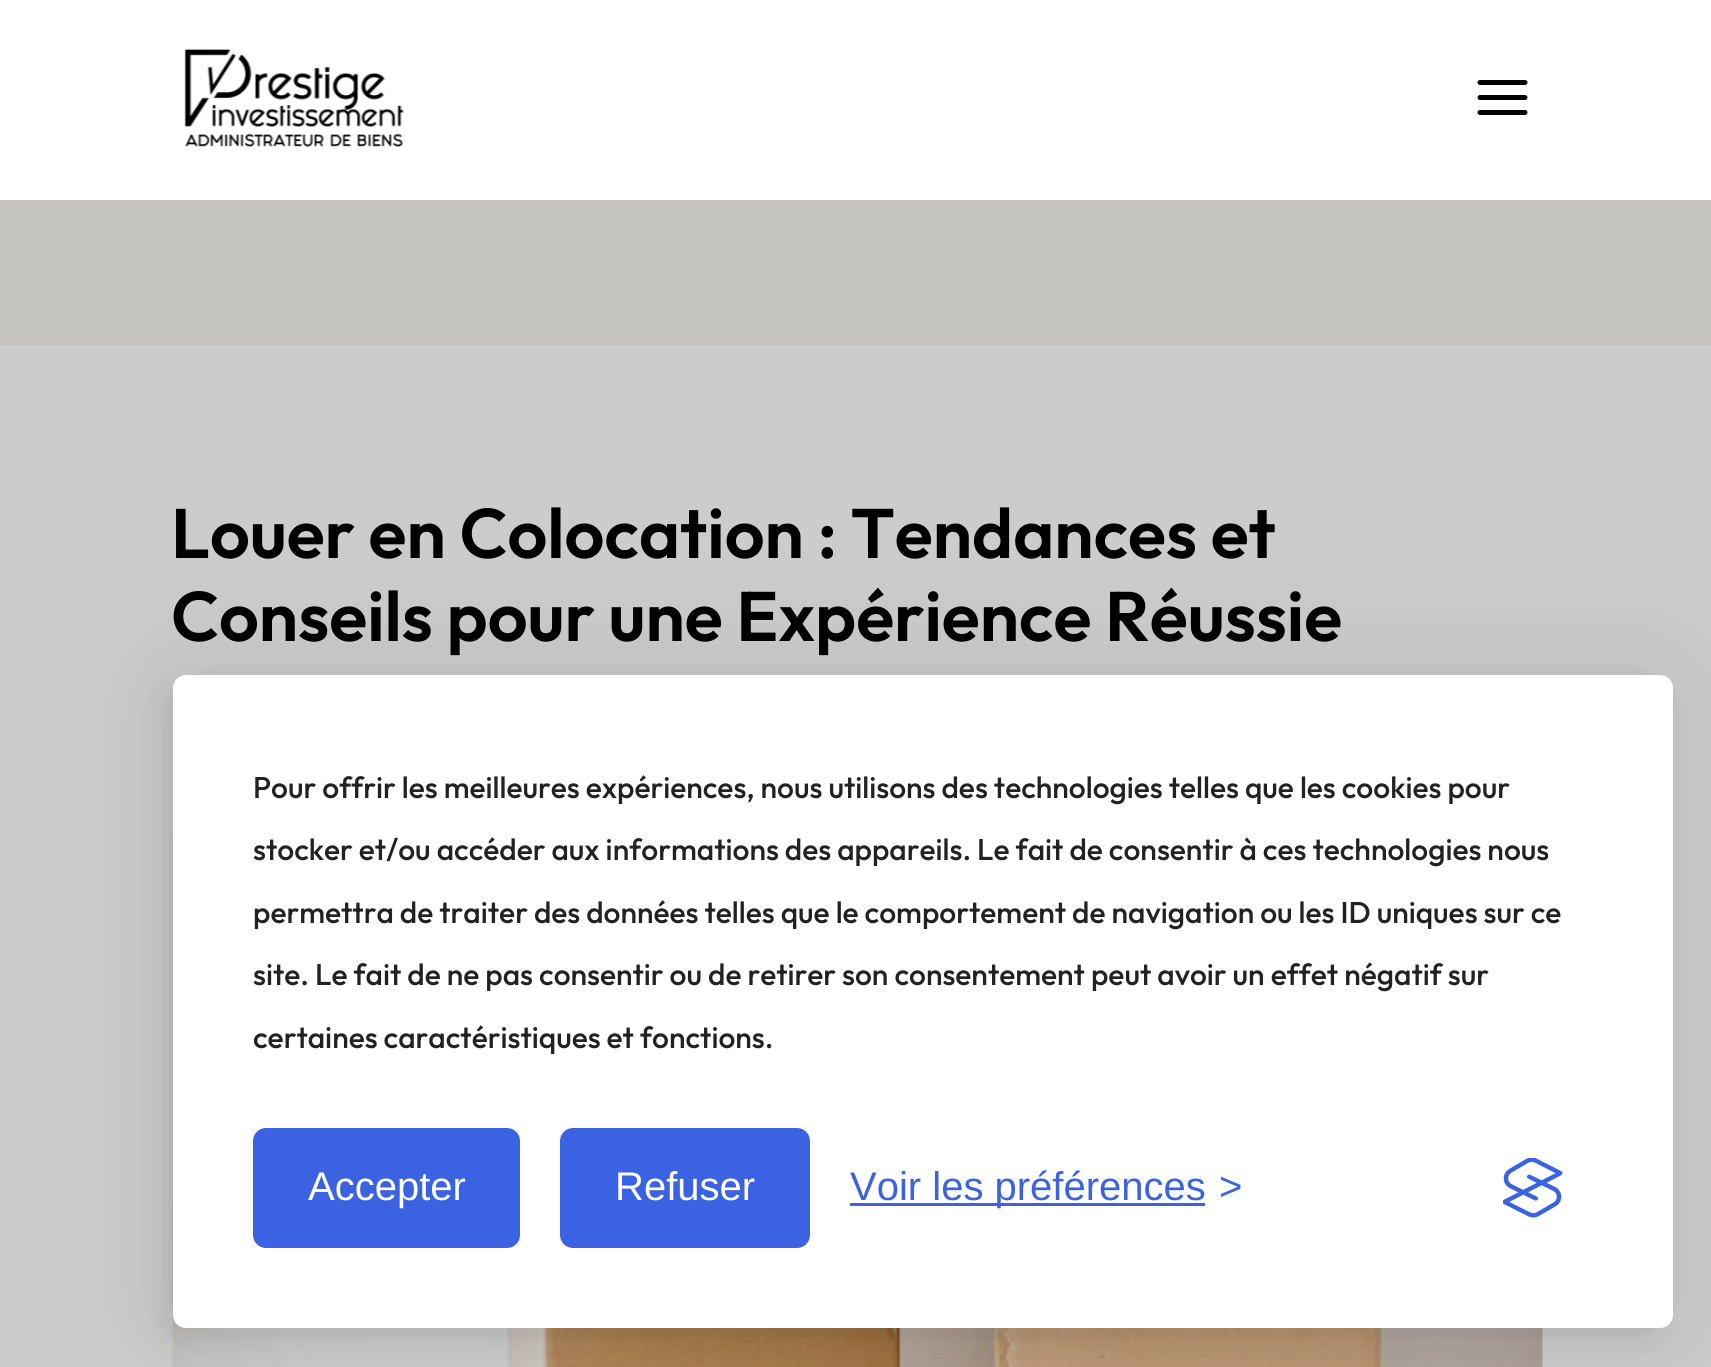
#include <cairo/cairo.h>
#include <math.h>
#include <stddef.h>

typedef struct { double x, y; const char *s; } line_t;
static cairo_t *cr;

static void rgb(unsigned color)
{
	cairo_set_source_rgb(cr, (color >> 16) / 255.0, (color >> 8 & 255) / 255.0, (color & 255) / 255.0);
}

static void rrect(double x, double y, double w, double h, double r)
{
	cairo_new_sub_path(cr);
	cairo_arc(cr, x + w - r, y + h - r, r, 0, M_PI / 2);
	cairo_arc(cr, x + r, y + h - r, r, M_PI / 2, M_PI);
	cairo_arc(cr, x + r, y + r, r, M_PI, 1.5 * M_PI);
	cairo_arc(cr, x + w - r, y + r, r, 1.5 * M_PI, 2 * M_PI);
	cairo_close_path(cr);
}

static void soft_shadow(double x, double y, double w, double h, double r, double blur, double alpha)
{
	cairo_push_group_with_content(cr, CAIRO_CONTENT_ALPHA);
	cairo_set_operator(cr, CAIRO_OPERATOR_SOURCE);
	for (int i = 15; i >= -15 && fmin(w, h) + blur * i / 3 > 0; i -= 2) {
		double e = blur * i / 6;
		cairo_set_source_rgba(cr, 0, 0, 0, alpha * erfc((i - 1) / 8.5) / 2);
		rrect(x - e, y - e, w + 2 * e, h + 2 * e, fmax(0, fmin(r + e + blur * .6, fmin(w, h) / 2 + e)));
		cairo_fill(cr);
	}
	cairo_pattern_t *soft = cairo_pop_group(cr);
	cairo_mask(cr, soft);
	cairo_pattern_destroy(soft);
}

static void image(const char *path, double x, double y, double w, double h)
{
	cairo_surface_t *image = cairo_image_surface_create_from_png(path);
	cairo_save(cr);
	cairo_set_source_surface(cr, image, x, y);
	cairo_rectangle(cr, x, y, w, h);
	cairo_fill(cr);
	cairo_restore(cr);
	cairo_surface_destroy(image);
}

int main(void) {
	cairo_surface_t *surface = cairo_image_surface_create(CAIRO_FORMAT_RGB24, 1711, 1367);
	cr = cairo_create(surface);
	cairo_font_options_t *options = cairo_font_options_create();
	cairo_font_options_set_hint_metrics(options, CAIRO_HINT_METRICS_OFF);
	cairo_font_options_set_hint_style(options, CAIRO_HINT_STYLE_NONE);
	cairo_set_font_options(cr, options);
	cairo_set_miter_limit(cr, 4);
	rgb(0xc6c4c0);
	cairo_paint(cr);
	rgb(0xffffff);
	cairo_rectangle(cr, 0, 0, 1711, 200);
	cairo_fill(cr);
	image("img/1.png", 184, 49, 220, 98);
	image("img/2.png", 1477, 80, 51, 35);
	rgb(0xcccccc);
	cairo_rectangle(cr, 0, 345, 1711, 1022);
	cairo_fill(cr);
	image("img/3.png", 172, 835, 1371, 532);
	rgb(0x000000);
	soft_shadow(173, 675, 1500, 653, 13, 62.5, 0.1);
	soft_shadow(160, 688, 1500, 652, 13, 12.5, 0.07);
	rgb(0xffffff);
	rrect(173, 675, 1500, 653, 13);
	cairo_fill(cr);
	rgb(0x3b62e2);
	rrect(255.5, 1130.5, 262, 115, 10.5);
	cairo_fill_preserve(cr);
	cairo_set_line_width(cr, 5);
	cairo_stroke(cr);
	rrect(562.5, 1130.5, 245, 115, 10.5);
	cairo_fill_preserve(cr);
	cairo_stroke(cr);
	cairo_rectangle(cr, 850, 1203, 355, 3);
	cairo_fill(cr);
	image("img/4.png", 1503, 1158, 60, 60);
	cairo_select_font_face(cr, "Outfit Thin", CAIRO_FONT_SLANT_NORMAL, CAIRO_FONT_WEIGHT_NORMAL);
	cairo_set_font_size(cr, 70);
	rgb(0x000000);
	cairo_move_to(cr, 171, 558);
	cairo_show_text(cr, "Louer en Colocation : Tendances et");
	cairo_move_to(cr, 171, 641);
	cairo_show_text(cr, "Conseils pour une Expérience Réussie");
	cairo_select_font_face(cr, "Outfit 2 Thin", CAIRO_FONT_SLANT_NORMAL, CAIRO_FONT_WEIGHT_NORMAL);
	cairo_set_font_size(cr, 30);
	rgb(0x222222);
	{
		static const line_t items[] = {
			{253, 798, "Pour offrir les meilleures expériences, nous utilisons des technologies telles que les cookies pour"},
			{253, 860, "stocker et/ou accéder aux informations des appareils. Le fait de consentir à ces technologies nous"},
			{253, 923, "permettra de traiter des données telles que le comportement de navigation ou les ID uniques sur ce"},
			{253, 985, "site. Le fait de ne pas consentir ou de retirer son consentement peut avoir un effet négatif sur"},
			{253, 1048, "certaines caractéristiques et fonctions."},
		};
		for (size_t i = 0; i < sizeof items / sizeof *items; i++) {
			cairo_move_to(cr, items[i].x, items[i].y);
			cairo_show_text(cr, items[i].s);
		}
	}
	cairo_select_font_face(cr, "Liberation Sans", CAIRO_FONT_SLANT_NORMAL, CAIRO_FONT_WEIGHT_NORMAL);
	cairo_set_font_size(cr, 40);
	rgb(0xffffff);
	cairo_move_to(cr, 308, 1200);
	cairo_show_text(cr, "Accepter");
	cairo_move_to(cr, 615, 1200);
	cairo_show_text(cr, "Refuser");
	rgb(0x3b62e2);
	cairo_move_to(cr, 850, 1200);
	cairo_show_text(cr, "Voir les préférences");
	cairo_move_to(cr, 1219, 1200);
	cairo_show_text(cr, ">");
	cairo_surface_write_to_png(surface, "page.png");
	cairo_font_options_destroy(options);
	cairo_destroy(cr);
	cairo_surface_destroy(surface);
	return 0;
}
